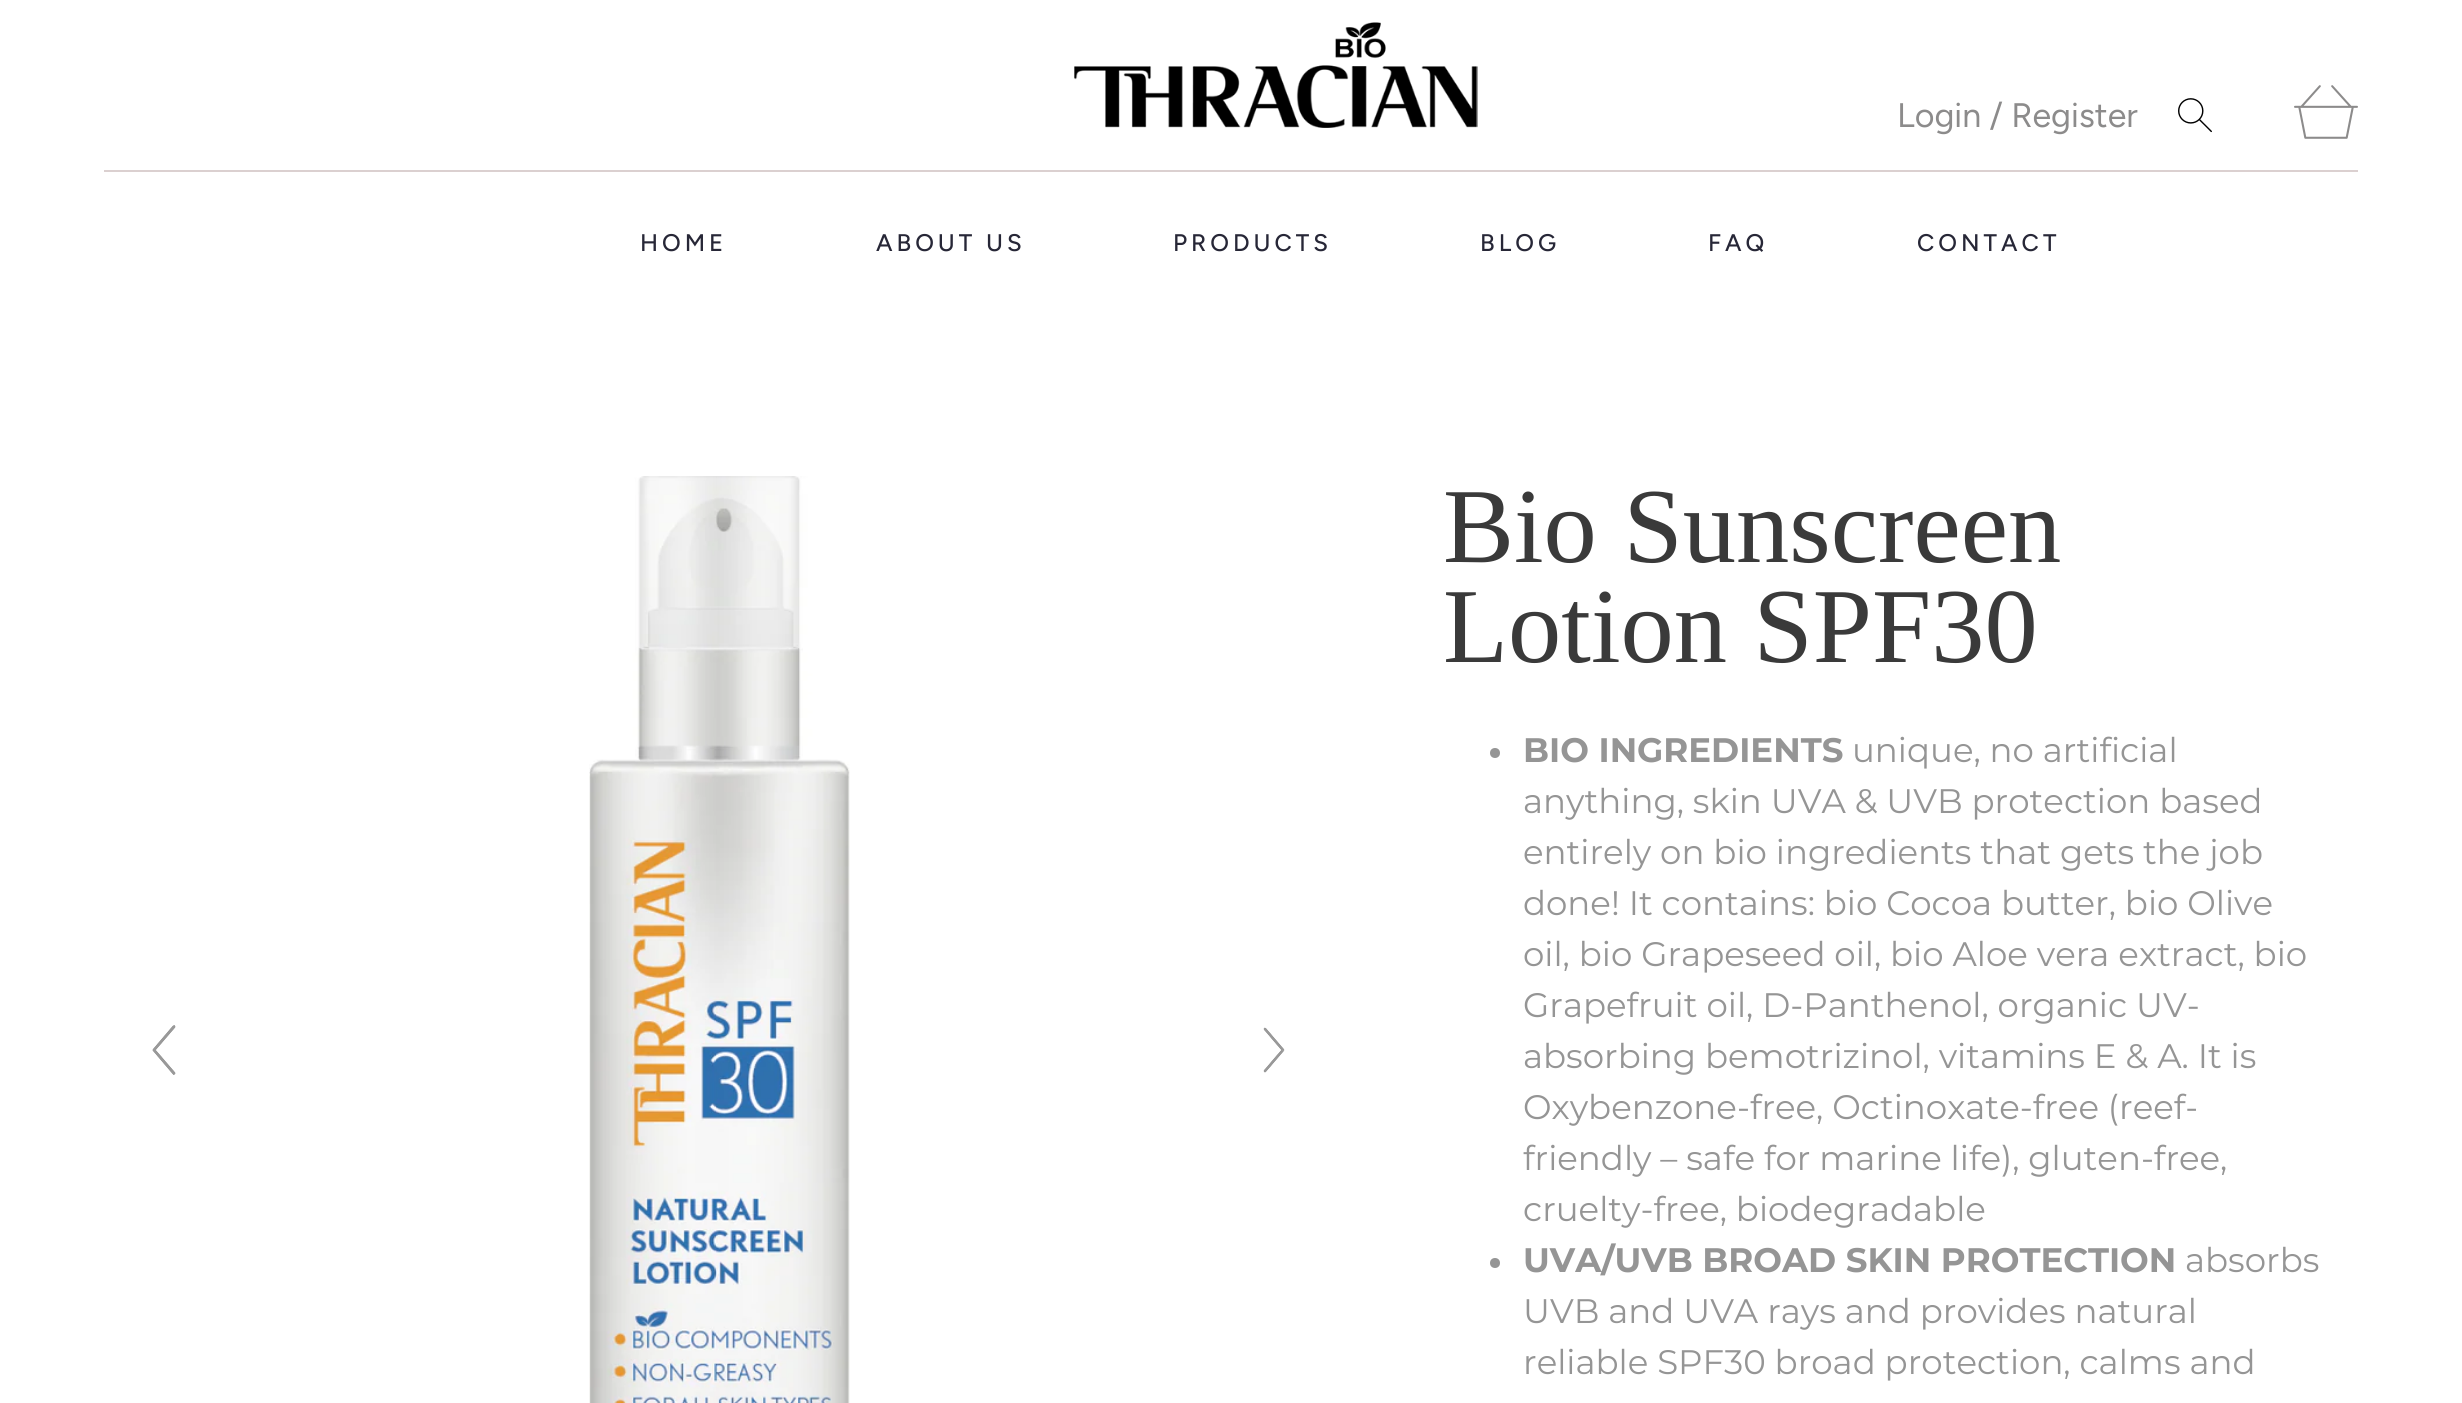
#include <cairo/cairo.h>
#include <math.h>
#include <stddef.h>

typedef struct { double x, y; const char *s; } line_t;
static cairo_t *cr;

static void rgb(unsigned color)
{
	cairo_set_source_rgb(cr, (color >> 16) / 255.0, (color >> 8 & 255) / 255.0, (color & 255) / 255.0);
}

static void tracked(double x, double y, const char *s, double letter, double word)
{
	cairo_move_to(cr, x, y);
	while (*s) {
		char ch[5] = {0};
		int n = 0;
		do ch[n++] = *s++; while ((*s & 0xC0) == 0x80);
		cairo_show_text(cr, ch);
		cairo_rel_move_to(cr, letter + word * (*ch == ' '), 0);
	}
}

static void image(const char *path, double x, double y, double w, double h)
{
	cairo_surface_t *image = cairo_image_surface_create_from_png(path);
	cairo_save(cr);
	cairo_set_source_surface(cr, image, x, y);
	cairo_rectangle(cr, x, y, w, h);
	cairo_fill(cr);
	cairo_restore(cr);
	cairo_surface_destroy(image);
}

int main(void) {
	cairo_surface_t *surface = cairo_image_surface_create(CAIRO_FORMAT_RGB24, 2462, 1403);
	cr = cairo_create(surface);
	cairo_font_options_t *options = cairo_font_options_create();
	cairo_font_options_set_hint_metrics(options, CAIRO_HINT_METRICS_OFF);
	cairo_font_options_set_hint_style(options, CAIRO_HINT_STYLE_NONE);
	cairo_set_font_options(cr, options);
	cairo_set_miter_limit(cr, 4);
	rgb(0xffffff);
	cairo_paint(cr);
	image("img/1.png", 1074, 22, 404, 106);
	image("img/2.png", 2178, 98, 34, 35);
	image("img/3.png", 2294, 85, 64, 54);
	rgb(0xdbd0d0);
	cairo_rectangle(cr, 104, 170, 2254, 2);
	cairo_fill(cr);
	image("img/4.png", 152, 1025, 24, 50);
	image("img/5.png", 589, 476, 261, 927);
	image("img/6.png", 1263, 1027, 22, 46);
	rgb(0x959595);
	cairo_arc(cr, 1495, 753, 5, 0, 2 * M_PI);
	cairo_fill(cr);
	cairo_arc(cr, 1495, 1263, 5, 0, 2 * M_PI);
	cairo_fill(cr);
	cairo_select_font_face(cr, "Figtree", CAIRO_FONT_SLANT_NORMAL, CAIRO_FONT_WEIGHT_NORMAL);
	cairo_set_font_size(cr, 34);
	rgb(0x8c8b8b);
	cairo_move_to(cr, 1897, 127);
	cairo_show_text(cr, "Login / Register");
	cairo_select_font_face(cr, "Figtree Medium", CAIRO_FONT_SLANT_NORMAL, CAIRO_FONT_WEIGHT_NORMAL);
	cairo_set_font_size(cr, 24);
	rgb(0x272737);
	{
		static const line_t items[] = {
			{640, 251, "HOME"},
			{876, 251, "ABOUT US"},
			{1173, 251, "PRODUCTS"},
			{1480, 251, "BLOG"},
			{1708, 251, "FAQ"},
			{1917, 251, "CONTACT"},
		};
		for (size_t i = 0; i < sizeof items / sizeof *items; i++) {
			tracked(items[i].x, items[i].y, items[i].s, 4, 0);
		}
	}
	cairo_select_font_face(cr, "Liberation Serif", CAIRO_FONT_SLANT_NORMAL, CAIRO_FONT_WEIGHT_NORMAL);
	cairo_set_font_size(cr, 106.5);
	rgb(0x3a3a3a);
	cairo_move_to(cr, 1443, 562);
	cairo_show_text(cr, "Bio Sunscreen");
	cairo_move_to(cr, 1443, 662);
	cairo_show_text(cr, "Lotion SPF30");
	cairo_select_font_face(cr, "Montserrat", CAIRO_FONT_SLANT_NORMAL, CAIRO_FONT_WEIGHT_BOLD);
	cairo_set_font_size(cr, 34);
	rgb(0x959595);
	cairo_move_to(cr, 1523, 762);
	cairo_show_text(cr, "BIO INGREDIENTS");
	cairo_select_font_face(cr, "Montserrat", CAIRO_FONT_SLANT_NORMAL, CAIRO_FONT_WEIGHT_NORMAL);
	{
		static const line_t items[] = {
			{1852, 762, "unique, no artificial"},
			{1523, 813, "anything, skin UVA & UVB protection based"},
			{1523, 864, "entirely on bio ingredients that gets the job"},
			{1523, 915, "done! It contains: bio Cocoa butter, bio Olive"},
			{1523, 966, "oil, bio Grapeseed oil, bio Aloe vera extract, bio"},
			{1523, 1017, "Grapefruit oil, D-Panthenol, organic UV-"},
			{1523, 1068, "absorbing bemotrizinol, vitamins E & A. It is"},
			{1523, 1119, "Oxybenzone-free, Octinoxate-free (reef-"},
			{1523, 1170, "friendly – safe for marine life), gluten-free,"},
			{1523, 1221, "cruelty-free, biodegradable"},
		};
		for (size_t i = 0; i < sizeof items / sizeof *items; i++) {
			cairo_move_to(cr, items[i].x, items[i].y);
			cairo_show_text(cr, items[i].s);
		}
	}
	cairo_select_font_face(cr, "Montserrat", CAIRO_FONT_SLANT_NORMAL, CAIRO_FONT_WEIGHT_BOLD);
	cairo_move_to(cr, 1523, 1272);
	cairo_show_text(cr, "UVA/UVB BROAD SKIN PROTECTION");
	cairo_select_font_face(cr, "Montserrat", CAIRO_FONT_SLANT_NORMAL, CAIRO_FONT_WEIGHT_NORMAL);
	{
		static const line_t items[] = {
			{2185, 1272, "absorbs"},
			{1523, 1323, "UVB and UVA rays and provides natural"},
			{1523, 1374, "reliable SPF30 broad protection, calms and"},
		};
		for (size_t i = 0; i < sizeof items / sizeof *items; i++) {
			cairo_move_to(cr, items[i].x, items[i].y);
			cairo_show_text(cr, items[i].s);
		}
	}
	cairo_surface_write_to_png(surface, "page.png");
	cairo_font_options_destroy(options);
	cairo_destroy(cr);
	cairo_surface_destroy(surface);
	return 0;
}
